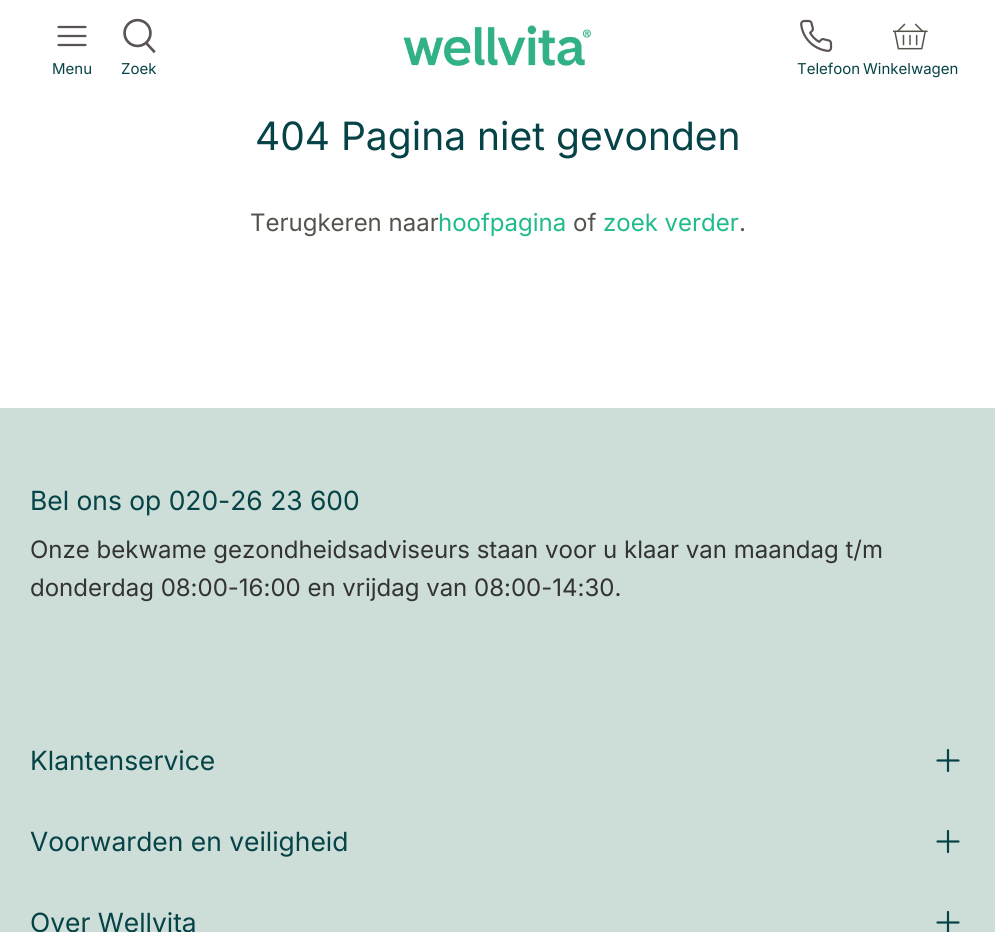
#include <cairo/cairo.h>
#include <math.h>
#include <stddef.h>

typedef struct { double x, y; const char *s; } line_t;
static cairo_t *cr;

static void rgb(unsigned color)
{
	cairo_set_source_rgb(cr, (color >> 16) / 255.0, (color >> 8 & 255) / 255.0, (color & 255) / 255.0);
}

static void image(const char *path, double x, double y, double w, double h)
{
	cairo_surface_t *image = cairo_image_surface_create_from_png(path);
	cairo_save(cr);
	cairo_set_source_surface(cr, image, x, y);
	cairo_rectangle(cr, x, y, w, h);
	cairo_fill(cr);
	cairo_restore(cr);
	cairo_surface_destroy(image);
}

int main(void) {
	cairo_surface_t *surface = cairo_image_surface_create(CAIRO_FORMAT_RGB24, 995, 932);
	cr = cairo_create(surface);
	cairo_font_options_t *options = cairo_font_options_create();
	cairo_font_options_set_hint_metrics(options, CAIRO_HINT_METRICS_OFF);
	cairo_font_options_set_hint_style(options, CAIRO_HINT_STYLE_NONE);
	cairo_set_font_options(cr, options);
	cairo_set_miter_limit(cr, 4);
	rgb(0xffffff);
	cairo_paint(cr);
	image("img/1.png", 403, 25, 188, 41);
	cairo_new_path(cr);
	cairo_move_to(cr, 58.5, 36);
	cairo_line_to(cr, 85.5, 36);
	cairo_move_to(cr, 58.5, 27);
	cairo_line_to(cr, 85.5, 27);
	cairo_move_to(cr, 58.5, 45);
	cairo_line_to(cr, 85.5, 45);
	rgb(0x5a5357);
	cairo_set_line_width(cr, 2.2);
	cairo_set_line_cap(cr, CAIRO_LINE_CAP_ROUND);
	cairo_set_line_join(cr, CAIRO_LINE_JOIN_ROUND);
	cairo_stroke(cr);
	image("img/2.png", 123, 18, 33, 36);
	image("img/3.png", 800, 19, 33, 33);
	image("img/4.png", 893, 23, 35, 27);
	rgb(0xcdddd8);
	cairo_rectangle(cr, 0, 408, 995, 524);
	cairo_fill(cr);
	cairo_new_path(cr);
	cairo_move_to(cr, 948, 750);
	cairo_line_to(cr, 948, 771);
	cairo_move_to(cr, 937.5, 760.5);
	cairo_line_to(cr, 958.5, 760.5);
	rgb(0x054346);
	cairo_stroke(cr);
	cairo_new_path(cr);
	cairo_move_to(cr, 948, 831);
	cairo_line_to(cr, 948, 852);
	cairo_move_to(cr, 937.5, 841.5);
	cairo_line_to(cr, 958.5, 841.5);
	cairo_stroke(cr);
	cairo_new_path(cr);
	cairo_move_to(cr, 948, 912);
	cairo_line_to(cr, 948, 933);
	cairo_move_to(cr, 937.5, 922.5);
	cairo_line_to(cr, 958.5, 922.5);
	cairo_stroke(cr);
	cairo_select_font_face(cr, "Inter", CAIRO_FONT_SLANT_NORMAL, CAIRO_FONT_WEIGHT_NORMAL);
	cairo_set_font_size(cr, 15);
	{
		static const line_t items[] = {
			{52, 74, "Menu"},
			{121, 74, "Zoek"},
			{797, 74, "Telefoon"},
			{863, 74, "Winkelwagen"},
		};
		for (size_t i = 0; i < sizeof items / sizeof *items; i++) {
			cairo_move_to(cr, items[i].x, items[i].y);
			cairo_show_text(cr, items[i].s);
		}
	}
	cairo_set_font_size(cr, 39);
	cairo_move_to(cr, 255, 150);
	cairo_show_text(cr, "404 Pagina niet gevonden");
	cairo_set_font_size(cr, 24);
	rgb(0x52554c);
	cairo_move_to(cr, 250, 231);
	cairo_show_text(cr, "Terugkeren naar");
	rgb(0x20bb8b);
	cairo_move_to(cr, 438, 231);
	cairo_show_text(cr, "hoofpagina");
	rgb(0x52554c);
	cairo_move_to(cr, 573, 231);
	cairo_show_text(cr, "of");
	rgb(0x20bb8b);
	cairo_move_to(cr, 603, 231);
	cairo_show_text(cr, "zoek verder");
	rgb(0x52554c);
	cairo_move_to(cr, 739, 231);
	cairo_show_text(cr, ".");
	cairo_set_font_size(cr, 26.4);
	rgb(0x054346);
	cairo_move_to(cr, 30, 510);
	cairo_show_text(cr, "Bel ons op 020-26 23 600");
	cairo_set_font_size(cr, 24);
	rgb(0x333333);
	cairo_move_to(cr, 30, 558);
	cairo_show_text(cr, "Onze bekwame gezondheidsadviseurs staan voor u klaar van maandag t/m");
	cairo_move_to(cr, 30, 596);
	cairo_show_text(cr, "donderdag 08:00-16:00 en vrijdag van 08:00-14:30.");
	cairo_set_font_size(cr, 26.4);
	rgb(0x054346);
	{
		static const line_t items[] = {
			{30, 770, "Klantenservice"},
			{30, 851, "Voorwarden en veiligheid"},
			{30, 932, "Over Wellvita"},
		};
		for (size_t i = 0; i < sizeof items / sizeof *items; i++) {
			cairo_move_to(cr, items[i].x, items[i].y);
			cairo_show_text(cr, items[i].s);
		}
	}
	cairo_surface_write_to_png(surface, "page.png");
	cairo_font_options_destroy(options);
	cairo_destroy(cr);
	cairo_surface_destroy(surface);
	return 0;
}
